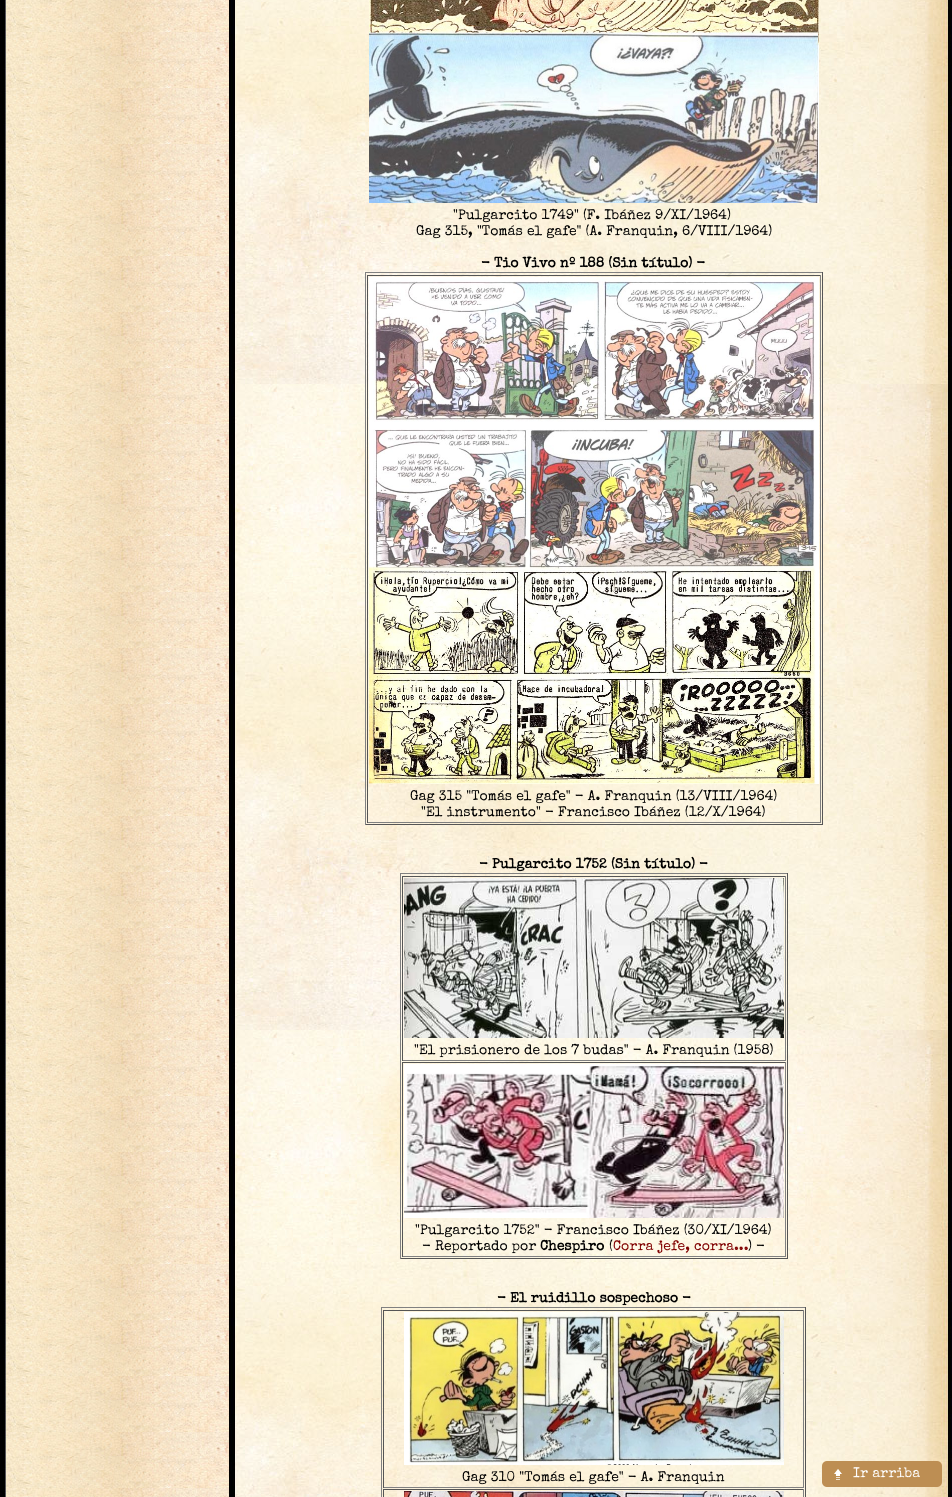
#include <cairo/cairo.h>
#include <math.h>
#include <stddef.h>

typedef struct { double x, y; const char *s; } line_t;
typedef struct { double x, y, w, h; unsigned color; } box_t;
static cairo_t *cr;

static void rgb(unsigned color)
{
	cairo_set_source_rgb(cr, (color >> 16) / 255.0, (color >> 8 & 255) / 255.0, (color & 255) / 255.0);
}

static void rrect(double x, double y, double w, double h, double r)
{
	cairo_new_sub_path(cr);
	cairo_arc(cr, x + w - r, y + h - r, r, 0, M_PI / 2);
	cairo_arc(cr, x + r, y + h - r, r, M_PI / 2, M_PI);
	cairo_arc(cr, x + r, y + r, r, M_PI, 1.5 * M_PI);
	cairo_arc(cr, x + w - r, y + r, r, 1.5 * M_PI, 2 * M_PI);
	cairo_close_path(cr);
}

static void image(const char *path, double x, double y, double w, double h)
{
	cairo_surface_t *image = cairo_image_surface_create_from_png(path);
	cairo_save(cr);
	cairo_set_source_surface(cr, image, x, y);
	cairo_rectangle(cr, x, y, w, h);
	cairo_fill(cr);
	cairo_restore(cr);
	cairo_surface_destroy(image);
}

int main(void) {
	cairo_surface_t *surface = cairo_image_surface_create(CAIRO_FORMAT_RGB24, 952, 1497);
	cr = cairo_create(surface);
	cairo_font_options_t *options = cairo_font_options_create();
	cairo_font_options_set_hint_metrics(options, CAIRO_HINT_METRICS_OFF);
	cairo_font_options_set_hint_style(options, CAIRO_HINT_STYLE_NONE);
	cairo_set_font_options(cr, options);
	cairo_set_miter_limit(cr, 4);
	rgb(0xffffff);
	cairo_paint(cr);
	image("img/1.png", 0, 0, 229, 1497);
	image("img/2.png", 229, 0, 723, 1497);
	image("img/3.png", 369, 0, 450, 203);
	{
		static const box_t items[] = {
			{365, 272, 458, 1, 0x808080},
			{822, 272, 1, 553, 0x555555},
			{365, 824, 458, 1, 0x555555},
			{365, 272, 1, 553, 0x808080},
			{367, 275, 454, 1, 0x555555},
			{820, 275, 1, 548, 0x808080},
			{367, 822, 454, 1, 0x808080},
			{367, 275, 1, 548, 0x555555},
		};
		for (size_t i = 0; i < sizeof items / sizeof *items; i++) {
			rgb(items[i].color);
			cairo_rectangle(cr, items[i].x, items[i].y, items[i].w, items[i].h);
			cairo_fill(cr);
		}
	}
	image("img/4.png", 369, 277, 450, 507);
	{
		static const box_t items[] = {
			{400, 873, 388, 1, 0x808080},
			{787, 873, 1, 386, 0x555555},
			{400, 1258, 388, 1, 0x555555},
			{400, 873, 1, 386, 0x808080},
			{402, 876, 384, 1, 0x555555},
			{785, 876, 1, 185, 0x808080},
			{402, 1060, 384, 1, 0x808080},
			{402, 876, 1, 185, 0x555555},
		};
		for (size_t i = 0; i < sizeof items / sizeof *items; i++) {
			rgb(items[i].color);
			cairo_rectangle(cr, items[i].x, items[i].y, items[i].w, items[i].h);
			cairo_fill(cr);
		}
	}
	image("img/5.png", 404, 878, 380, 160);
	{
		static const box_t items[] = {
			{402, 1062, 384, 1, 0x555555},
			{785, 1062, 1, 195, 0x808080},
			{402, 1256, 384, 1, 0x808080},
			{402, 1062, 1, 195, 0x555555},
		};
		for (size_t i = 0; i < sizeof items / sizeof *items; i++) {
			rgb(items[i].color);
			cairo_rectangle(cr, items[i].x, items[i].y, items[i].w, items[i].h);
			cairo_fill(cr);
		}
	}
	image("img/6.png", 404, 1064, 380, 154);
	{
		static const box_t items[] = {
			{381, 1307, 425, 1, 0x808080},
			{805, 1307, 1, 190, 0x555555},
			{381, 1307, 1, 190, 0x808080},
			{383, 1310, 421, 1, 0x555555},
			{803, 1310, 1, 178, 0x808080},
			{383, 1487, 421, 1, 0x808080},
			{383, 1310, 1, 178, 0x555555},
		};
		for (size_t i = 0; i < sizeof items / sizeof *items; i++) {
			rgb(items[i].color);
			cairo_rectangle(cr, items[i].x, items[i].y, items[i].w, items[i].h);
			cairo_fill(cr);
		}
	}
	image("img/7.png", 404, 1312, 380, 153);
	{
		static const box_t items[] = {
			{383, 1489, 421, 1, 0x555555},
			{803, 1489, 1, 8, 0x808080},
			{383, 1489, 1, 8, 0x555555},
		};
		for (size_t i = 0; i < sizeof items / sizeof *items; i++) {
			rgb(items[i].color);
			cairo_rectangle(cr, items[i].x, items[i].y, items[i].w, items[i].h);
			cairo_fill(cr);
		}
	}
	image("img/8.png", 404, 1491, 380, 6);
	rgb(0xbd8e53);
	rrect(822, 1461, 120, 26, 5);
	cairo_fill(cr);
	image("img/9.png", 834, 1469, 8, 11);
	cairo_select_font_face(cr, "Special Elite", CAIRO_FONT_SLANT_NORMAL, CAIRO_FONT_WEIGHT_NORMAL);
	cairo_set_font_size(cr, 14);
	rgb(0x000000);
	cairo_move_to(cr, 453, 219);
	cairo_show_text(cr, "\"Pulgarcito 1749\" (F. Ibáñez 9/XI/1964)");
	cairo_move_to(cr, 416, 235);
	cairo_show_text(cr, "Gag 315, \"Tomás el gafe\" (A. Franquin, 6/VIII/1964)");
	cairo_select_font_face(cr, "Special Elite", CAIRO_FONT_SLANT_NORMAL, CAIRO_FONT_WEIGHT_BOLD);
	cairo_move_to(cr, 481, 267);
	cairo_show_text(cr, "- Tio Vivo nº 188 (Sin título) -");
	cairo_select_font_face(cr, "Special Elite", CAIRO_FONT_SLANT_NORMAL, CAIRO_FONT_WEIGHT_NORMAL);
	cairo_move_to(cr, 410, 800);
	cairo_show_text(cr, "Gag 315 \"Tomás el gafe\" - A. Franquin (13/VIII/1964)");
	cairo_move_to(cr, 421, 816);
	cairo_show_text(cr, "\"El instrumento\" - Francisco Ibáñez (12/X/1964)");
	cairo_select_font_face(cr, "Special Elite", CAIRO_FONT_SLANT_NORMAL, CAIRO_FONT_WEIGHT_BOLD);
	cairo_move_to(cr, 479, 868);
	cairo_show_text(cr, "- Pulgarcito 1752 (Sin título) -");
	cairo_select_font_face(cr, "Special Elite", CAIRO_FONT_SLANT_NORMAL, CAIRO_FONT_WEIGHT_NORMAL);
	{
		static const line_t items[] = {
			{414, 1054, "\"El prisionero de los 7 budas\" - A. Franquin (1958)"},
			{415, 1234, "\"Pulgarcito 1752\" - Francisco Ibáñez (30/XI/1964)"},
			{422, 1250, "- Reportado por"},
		};
		for (size_t i = 0; i < sizeof items / sizeof *items; i++) {
			cairo_move_to(cr, items[i].x, items[i].y);
			cairo_show_text(cr, items[i].s);
		}
	}
	cairo_select_font_face(cr, "Special Elite", CAIRO_FONT_SLANT_NORMAL, CAIRO_FONT_WEIGHT_BOLD);
	cairo_move_to(cr, 540, 1250);
	cairo_show_text(cr, "Chespiro");
	cairo_select_font_face(cr, "Special Elite", CAIRO_FONT_SLANT_NORMAL, CAIRO_FONT_WEIGHT_NORMAL);
	cairo_move_to(cr, 609, 1250);
	cairo_show_text(cr, "(");
	rgb(0x800000);
	cairo_move_to(cr, 613, 1250);
	cairo_show_text(cr, "Corra jefe, corra...");
	rgb(0x000000);
	cairo_move_to(cr, 748, 1250);
	cairo_show_text(cr, ") -");
	cairo_select_font_face(cr, "Special Elite", CAIRO_FONT_SLANT_NORMAL, CAIRO_FONT_WEIGHT_BOLD);
	cairo_move_to(cr, 497, 1302);
	cairo_show_text(cr, "- El ruidillo sospechoso -");
	cairo_select_font_face(cr, "Special Elite", CAIRO_FONT_SLANT_NORMAL, CAIRO_FONT_WEIGHT_NORMAL);
	cairo_move_to(cr, 462, 1481);
	cairo_show_text(cr, "Gag 310 \"Tomás el gafe\" - A. Franquin");
	rgb(0xffffff);
	cairo_move_to(cr, 853, 1477);
	cairo_show_text(cr, "Ir arriba");
	cairo_surface_write_to_png(surface, "page.png");
	cairo_font_options_destroy(options);
	cairo_destroy(cr);
	cairo_surface_destroy(surface);
	return 0;
}
